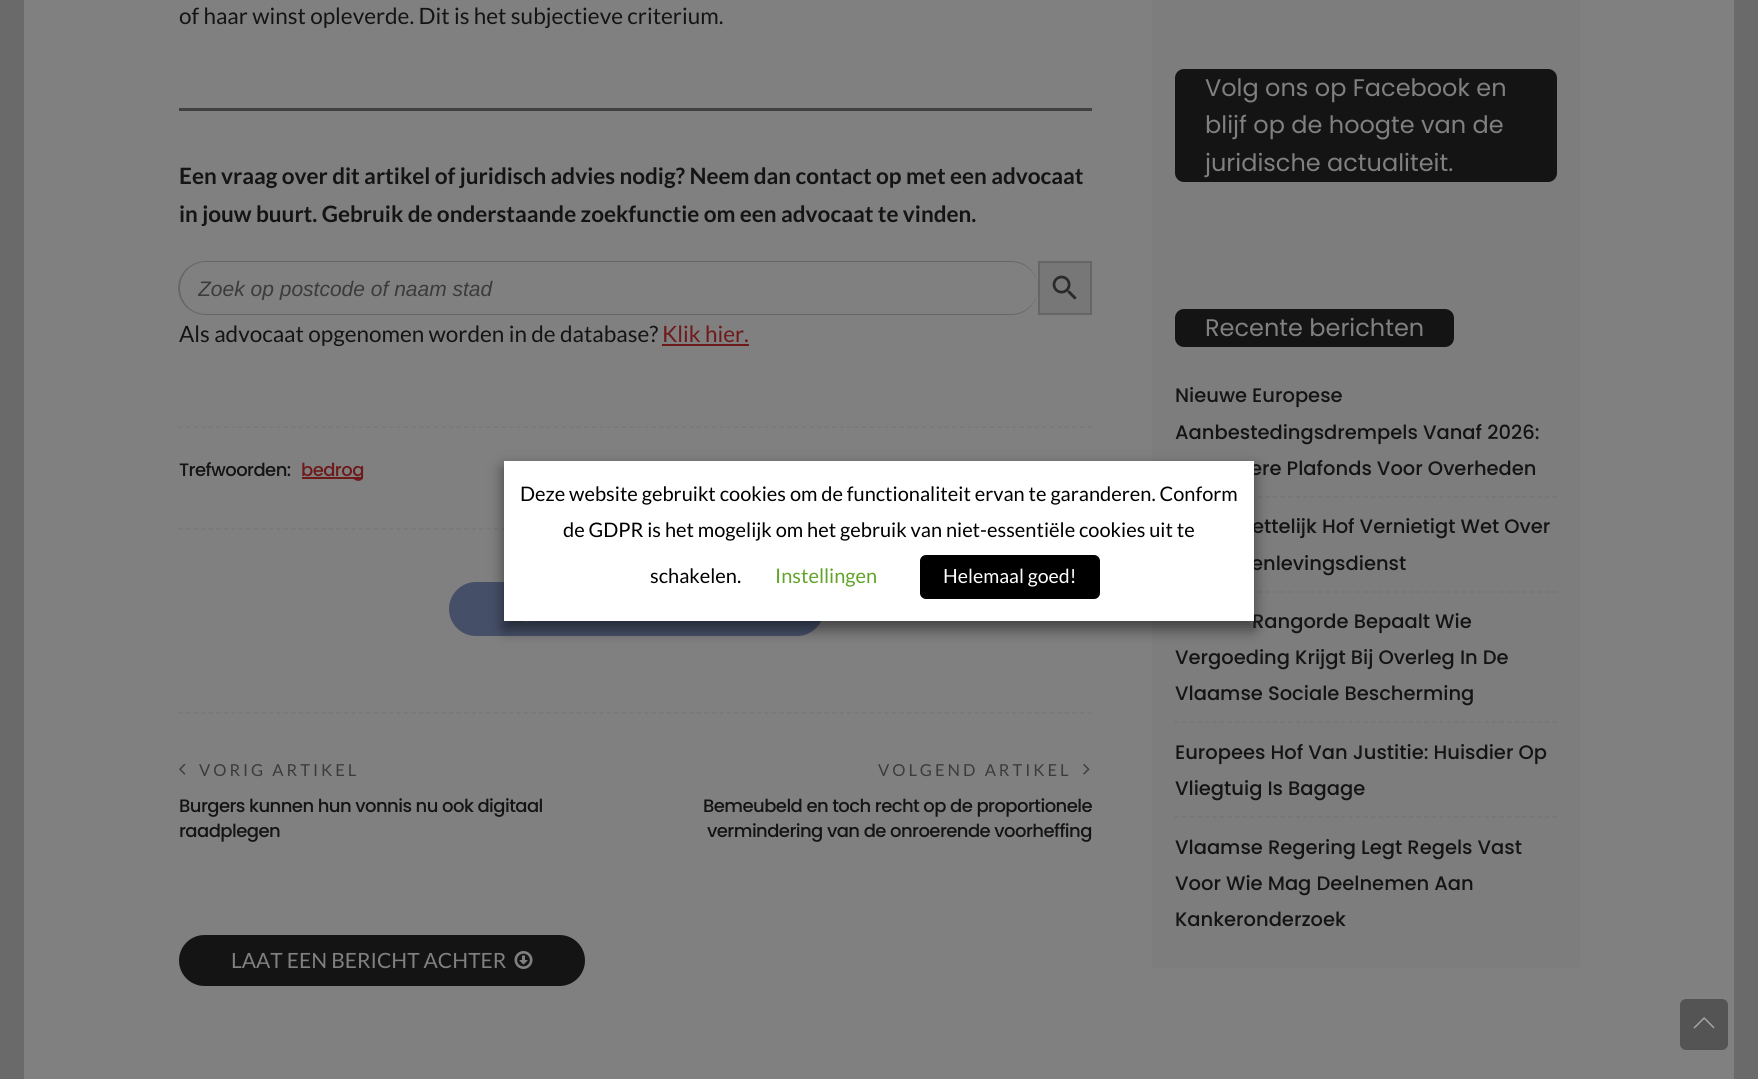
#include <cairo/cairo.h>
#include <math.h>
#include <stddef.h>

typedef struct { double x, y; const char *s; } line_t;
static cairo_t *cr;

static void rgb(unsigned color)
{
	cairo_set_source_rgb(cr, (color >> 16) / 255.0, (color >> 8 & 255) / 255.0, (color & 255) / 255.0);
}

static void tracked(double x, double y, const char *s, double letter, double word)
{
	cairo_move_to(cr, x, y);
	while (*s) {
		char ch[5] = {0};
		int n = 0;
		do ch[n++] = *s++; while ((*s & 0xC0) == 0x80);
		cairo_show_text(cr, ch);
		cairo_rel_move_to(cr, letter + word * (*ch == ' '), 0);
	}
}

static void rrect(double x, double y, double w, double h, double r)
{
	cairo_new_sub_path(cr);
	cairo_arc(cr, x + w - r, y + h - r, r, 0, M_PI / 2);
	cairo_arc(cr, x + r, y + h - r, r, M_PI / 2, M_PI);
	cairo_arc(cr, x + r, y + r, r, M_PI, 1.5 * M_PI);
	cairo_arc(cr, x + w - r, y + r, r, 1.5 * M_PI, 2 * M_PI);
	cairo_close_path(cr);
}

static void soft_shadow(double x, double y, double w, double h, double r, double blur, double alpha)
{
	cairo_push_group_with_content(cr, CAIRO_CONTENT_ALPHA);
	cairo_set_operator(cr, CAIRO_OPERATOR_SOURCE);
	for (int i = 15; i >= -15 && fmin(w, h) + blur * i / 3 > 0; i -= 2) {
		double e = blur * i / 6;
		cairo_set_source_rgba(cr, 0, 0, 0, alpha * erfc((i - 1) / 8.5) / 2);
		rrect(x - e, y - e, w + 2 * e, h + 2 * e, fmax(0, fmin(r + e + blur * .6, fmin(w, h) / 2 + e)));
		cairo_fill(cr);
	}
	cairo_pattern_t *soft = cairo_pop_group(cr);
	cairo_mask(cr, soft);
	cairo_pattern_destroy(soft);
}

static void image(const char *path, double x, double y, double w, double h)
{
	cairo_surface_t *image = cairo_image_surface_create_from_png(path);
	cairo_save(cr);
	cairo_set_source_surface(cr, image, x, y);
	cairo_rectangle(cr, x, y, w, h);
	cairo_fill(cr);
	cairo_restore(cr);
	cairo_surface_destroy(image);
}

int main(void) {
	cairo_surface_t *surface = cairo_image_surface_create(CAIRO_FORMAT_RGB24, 1758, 1079);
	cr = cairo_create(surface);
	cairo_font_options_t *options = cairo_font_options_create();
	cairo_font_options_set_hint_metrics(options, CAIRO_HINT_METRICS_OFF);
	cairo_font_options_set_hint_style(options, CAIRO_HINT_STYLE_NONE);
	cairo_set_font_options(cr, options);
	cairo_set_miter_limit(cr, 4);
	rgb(0x6a6a6a);
	cairo_paint(cr);
	rgb(0x808080);
	cairo_rectangle(cr, 24, 0, 1710, 1079);
	cairo_fill(cr);
	rgb(0x404040);
	cairo_rectangle(cr, 179, 108, 913, 3);
	cairo_fill(cr);
	rgb(0x666666);
	cairo_set_fill_rule(cr, CAIRO_FILL_RULE_EVEN_ODD);
	cairo_new_path(cr);
	cairo_move_to(cr, 206, 261);
	cairo_line_to(cr, 1011, 261);
	cairo_curve_to(cr, 1026, 261, 1038, 273, 1038, 288);
	cairo_curve_to(cr, 1038, 303, 1026, 315, 1011, 315);
	cairo_line_to(cr, 206, 315);
	cairo_curve_to(cr, 191, 315, 178, 303, 178, 288);
	cairo_curve_to(cr, 178, 273, 191, 261, 206, 261);
	cairo_close_path(cr);
	cairo_move_to(cr, 206, 262);
	cairo_line_to(cr, 1011, 262);
	cairo_curve_to(cr, 1026, 262, 1038, 274, 1038, 288);
	cairo_curve_to(cr, 1038, 302, 1026, 314, 1011, 314);
	cairo_line_to(cr, 206, 314);
	cairo_curve_to(cr, 191, 314, 180, 302, 180, 288);
	cairo_curve_to(cr, 180, 274, 191, 262, 206, 262);
	cairo_close_path(cr);
	cairo_fill(cr);
	rgb(0x777777);
	cairo_rectangle(cr, 1039, 262, 52, 52);
	cairo_fill_preserve(cr);
	rgb(0x666666);
	cairo_stroke(cr);
	image("img/1.png", 1052, 275, 25, 25);
	rgb(0x6f1a1a);
	cairo_rectangle(cr, 662, 344, 87, 2);
	cairo_fill(cr);
	cairo_new_path(cr);
	cairo_move_to(cr, 178.5, 427);
	cairo_line_to(cr, 1092, 427);
	rgb(0x787878);
	cairo_set_line_width(cr, 1.5);
	cairo_set_dash(cr, (double[]){4.5, 3.01}, 2, 0);
	cairo_stroke(cr);
	rgb(0x6f1a1a);
	cairo_rectangle(cr, 302, 477, 61, 2);
	cairo_fill(cr);
	cairo_new_path(cr);
	cairo_move_to(cr, 178.5, 529);
	cairo_line_to(cr, 1092, 529);
	rgb(0x787878);
	cairo_stroke(cr);
	rgb(0x454f67);
	rrect(449, 582, 375, 54, 27);
	cairo_fill(cr);
	image("img/2.png", 524, 621, 5, 1);
	cairo_new_path(cr);
	cairo_move_to(cr, 178.5, 713);
	cairo_line_to(cr, 1092, 713);
	rgb(0x787878);
	cairo_stroke(cr);
	image("img/3.png", 179, 763, 7, 12);
	image("img/4.png", 1083, 763, 7, 12);
	rgb(0x141414);
	rrect(179, 935, 406, 51, 25.5);
	cairo_fill(cr);
	image("img/5.png", 514, 951, 19, 18);
	rgb(0x7d7d7d);
	rrect(1152, -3, 428, 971, 3);
	cairo_fill(cr);
	rgb(0x141414);
	rrect(1175, 69, 382, 113, 9);
	cairo_fill(cr);
	rrect(1175, 309, 279, 38, 9);
	cairo_fill(cr);
	cairo_new_path(cr);
	cairo_move_to(cr, 1174.5, 497);
	cairo_line_to(cr, 1557, 497);
	rgb(0x757575);
	cairo_set_dash(cr, (double[]){4.5, 3.06}, 2, 0);
	cairo_stroke(cr);
	cairo_new_path(cr);
	cairo_move_to(cr, 1174.5, 592);
	cairo_line_to(cr, 1557, 592);
	cairo_stroke(cr);
	cairo_new_path(cr);
	cairo_move_to(cr, 1174.5, 722);
	cairo_line_to(cr, 1557, 722);
	cairo_stroke(cr);
	cairo_new_path(cr);
	cairo_move_to(cr, 1174.5, 817);
	cairo_line_to(cr, 1557, 817);
	cairo_stroke(cr);
	rgb(0x000000);
	soft_shadow(504, 468, 750, 161, 0, 7.5, 0.5);
	rgb(0x545454);
	rrect(1680, 999, 48, 51, 6);
	cairo_fill(cr);
	image("img/6.png", 1693, 1017, 22, 12);
	cairo_select_font_face(cr, "Lato", CAIRO_FONT_SLANT_NORMAL, CAIRO_FONT_WEIGHT_NORMAL);
	cairo_set_font_size(cr, 22.5);
	rgb(0x141414);
	cairo_move_to(cr, 179, 24);
	cairo_show_text(cr, "of haar winst opleverde. Dit is het subjectieve criterium.");
	cairo_select_font_face(cr, "Lato", CAIRO_FONT_SLANT_NORMAL, CAIRO_FONT_WEIGHT_BOLD);
	cairo_move_to(cr, 179, 184);
	cairo_show_text(cr, "Een vraag over dit artikel of juridisch advies nodig? Neem dan contact op met een advocaat");
	cairo_move_to(cr, 179, 222);
	cairo_show_text(cr, "in jouw buurt. Gebruik de onderstaande zoekfunctie om een advocaat te vinden.");
	cairo_save(cr);
	cairo_set_fill_rule(cr, CAIRO_FILL_RULE_WINDING);
	cairo_rectangle(cr, 198, 276, 822, 24);
	cairo_clip(cr);
	cairo_select_font_face(cr, "Liberation Sans", CAIRO_FONT_SLANT_ITALIC, CAIRO_FONT_WEIGHT_NORMAL);
	cairo_set_font_size(cr, 21);
	rgb(0x3b3b3b);
	cairo_move_to(cr, 198, 296);
	cairo_show_text(cr, "Zoek op postcode of naam stad");
	cairo_restore(cr);
	cairo_select_font_face(cr, "Lato", CAIRO_FONT_SLANT_NORMAL, CAIRO_FONT_WEIGHT_NORMAL);
	cairo_move_to(cr, 179, 342);
	cairo_show_text(cr, "Als advocaat opgenomen worden in de database?");
	rgb(0x6f1a1a);
	cairo_move_to(cr, 662, 342);
	cairo_show_text(cr, "Klik hier.");
	cairo_select_font_face(cr, "Poppins Medium", CAIRO_FONT_SLANT_NORMAL, CAIRO_FONT_WEIGHT_NORMAL);
	cairo_set_font_size(cr, 18);
	rgb(0x141414);
	tracked(179, 476, "Trefwoorden:", -0.55, 0);
	rgb(0x6f1a1a);
	tracked(301, 476, "bedrog", -0.55, 0);
	cairo_select_font_face(cr, "Lato", CAIRO_FONT_SLANT_NORMAL, CAIRO_FONT_WEIGHT_NORMAL);
	cairo_set_font_size(cr, 16.5);
	rgb(0x3b3b3b);
	tracked(199, 776, "VORIG ARTIKEL", 3, 0);
	cairo_select_font_face(cr, "Poppins Medium", CAIRO_FONT_SLANT_NORMAL, CAIRO_FONT_WEIGHT_NORMAL);
	cairo_set_font_size(cr, 18);
	rgb(0x141414);
	tracked(179, 812, "Burgers kunnen hun vonnis nu ook digitaal", -0.55, 0);
	tracked(179, 837, "raadplegen", -0.55, 0);
	cairo_select_font_face(cr, "Lato", CAIRO_FONT_SLANT_NORMAL, CAIRO_FONT_WEIGHT_NORMAL);
	cairo_set_font_size(cr, 16.5);
	rgb(0x3b3b3b);
	tracked(878, 776, "VOLGEND ARTIKEL", 3, 0);
	cairo_select_font_face(cr, "Poppins Medium", CAIRO_FONT_SLANT_NORMAL, CAIRO_FONT_WEIGHT_NORMAL);
	cairo_set_font_size(cr, 18);
	rgb(0x141414);
	tracked(703, 812, "Bemeubeld en toch recht op de proportionele", -0.55, 0);
	tracked(707, 837, "vermindering van de onroerende voorheffing", -0.55, 0);
	cairo_select_font_face(cr, "Lato", CAIRO_FONT_SLANT_NORMAL, CAIRO_FONT_WEIGHT_NORMAL);
	cairo_set_font_size(cr, 21);
	rgb(0x808080);
	cairo_move_to(cr, 231, 968);
	cairo_show_text(cr, "LAAT EEN BERICHT ACHTER");
	cairo_select_font_face(cr, "Poppins", CAIRO_FONT_SLANT_NORMAL, CAIRO_FONT_WEIGHT_NORMAL);
	cairo_set_font_size(cr, 24);
	{
		static const line_t items[] = {
			{1205, 96, "Volg ons op Facebook en"},
			{1205, 133, "blijf op de hoogte van de"},
			{1205, 171, "juridische actualiteit."},
			{1205, 336, "Recente berichten"},
		};
		for (size_t i = 0; i < sizeof items / sizeof *items; i++) {
			cairo_move_to(cr, items[i].x, items[i].y);
			cairo_show_text(cr, items[i].s);
		}
	}
	cairo_select_font_face(cr, "Poppins Medium", CAIRO_FONT_SLANT_NORMAL, CAIRO_FONT_WEIGHT_NORMAL);
	cairo_set_font_size(cr, 19.5);
	rgb(0x141414);
	{
		static const line_t items[] = {
			{1175, 402, "Nieuwe Europese"},
			{1175, 439, "Aanbestedingsdrempels Vanaf 2026:"},
			{1250, 475, "ere Plafonds Voor Overheden"},
			{1252, 533, "ettelijk Hof Vernietigt Wet Over"},
			{1251, 570, "enlevingsdienst"},
			{1252, 628, "Rangorde Bepaalt Wie"},
			{1175, 664, "Vergoeding Krijgt Bij Overleg In De"},
			{1175, 700, "Vlaamse Sociale Bescherming"},
			{1175, 759, "Europees Hof Van Justitie: Huisdier Op"},
			{1175, 795, "Vliegtuig Is Bagage"},
			{1175, 854, "Vlaamse Regering Legt Regels Vast"},
			{1175, 890, "Voor Wie Mag Deelnemen Aan"},
			{1175, 926, "Kankeronderzoek"},
		};
		for (size_t i = 0; i < sizeof items / sizeof *items; i++) {
			cairo_move_to(cr, items[i].x, items[i].y);
			cairo_show_text(cr, items[i].s);
		}
	}
	rgb(0xffffff);
	cairo_rectangle(cr, 504, 461, 750, 160);
	cairo_fill(cr);
	cairo_select_font_face(cr, "Lato", CAIRO_FONT_SLANT_NORMAL, CAIRO_FONT_WEIGHT_NORMAL);
	cairo_set_font_size(cr, 20);
	rgb(0x000000);
	{
		static const line_t items[] = {
			{520, 501, "Deze website gebruikt cookies om de functionaliteit ervan te garanderen. Conform"},
			{563, 537, "de GDPR is het mogelijk om het gebruik van niet-essentiële cookies uit te"},
			{650, 583, "schakelen."},
		};
		for (size_t i = 0; i < sizeof items / sizeof *items; i++) {
			cairo_move_to(cr, items[i].x, items[i].y);
			cairo_show_text(cr, items[i].s);
		}
	}
	rgb(0x62a329);
	cairo_move_to(cr, 775, 583);
	cairo_show_text(cr, "Instellingen");
	rgb(0x000000);
	rrect(920, 555, 180, 44, 6);
	cairo_fill(cr);
	cairo_set_font_size(cr, 19.5);
	rgb(0xffffff);
	cairo_move_to(cr, 943, 583);
	cairo_show_text(cr, "Helemaal goed!");
	cairo_surface_write_to_png(surface, "page.png");
	cairo_font_options_destroy(options);
	cairo_destroy(cr);
	cairo_surface_destroy(surface);
	return 0;
}
